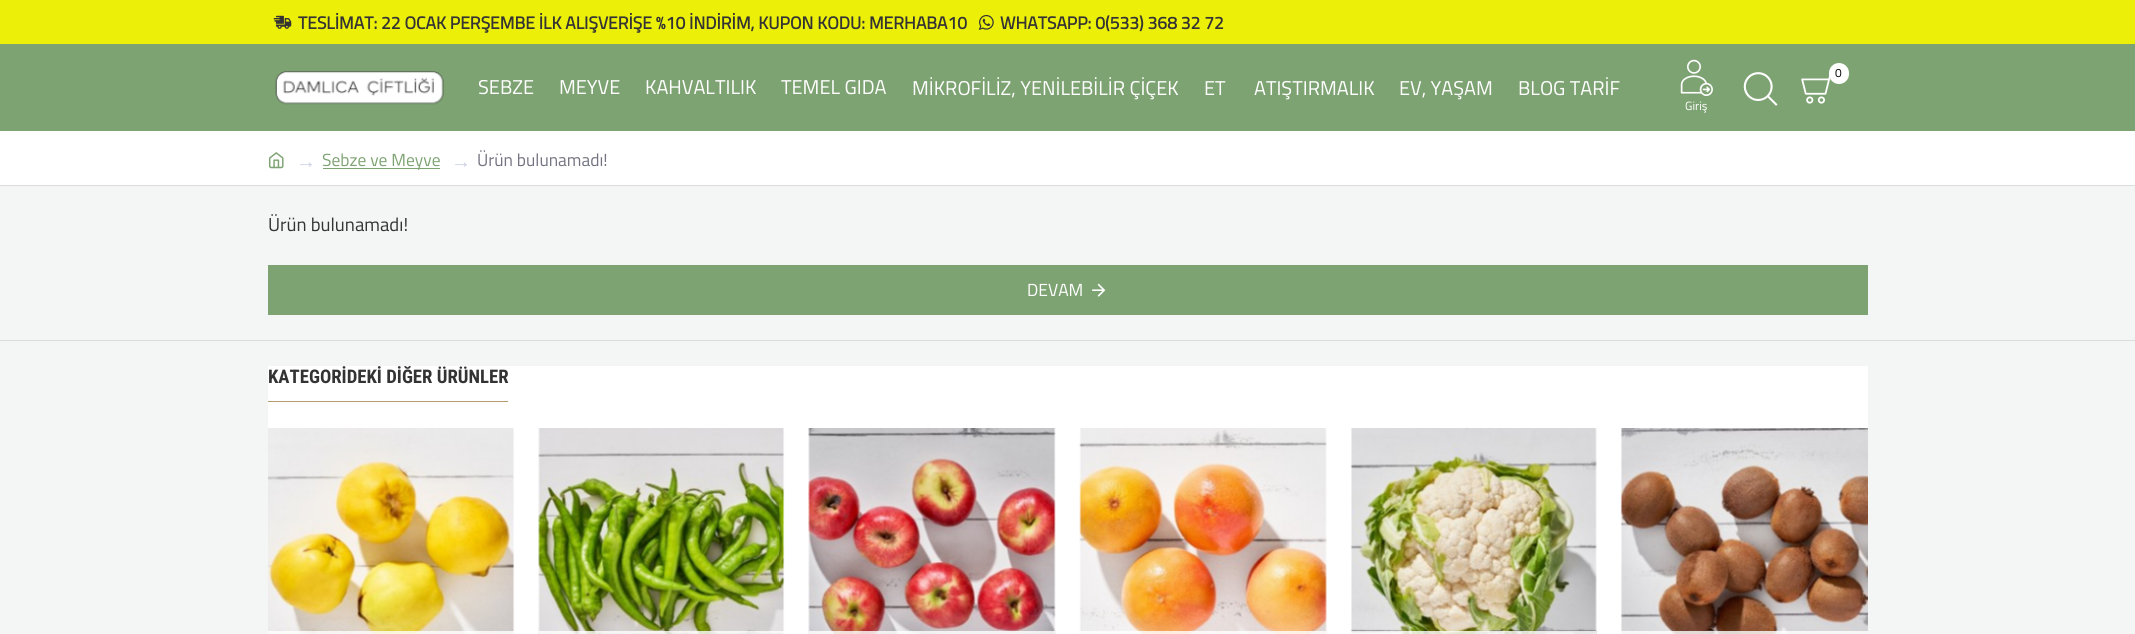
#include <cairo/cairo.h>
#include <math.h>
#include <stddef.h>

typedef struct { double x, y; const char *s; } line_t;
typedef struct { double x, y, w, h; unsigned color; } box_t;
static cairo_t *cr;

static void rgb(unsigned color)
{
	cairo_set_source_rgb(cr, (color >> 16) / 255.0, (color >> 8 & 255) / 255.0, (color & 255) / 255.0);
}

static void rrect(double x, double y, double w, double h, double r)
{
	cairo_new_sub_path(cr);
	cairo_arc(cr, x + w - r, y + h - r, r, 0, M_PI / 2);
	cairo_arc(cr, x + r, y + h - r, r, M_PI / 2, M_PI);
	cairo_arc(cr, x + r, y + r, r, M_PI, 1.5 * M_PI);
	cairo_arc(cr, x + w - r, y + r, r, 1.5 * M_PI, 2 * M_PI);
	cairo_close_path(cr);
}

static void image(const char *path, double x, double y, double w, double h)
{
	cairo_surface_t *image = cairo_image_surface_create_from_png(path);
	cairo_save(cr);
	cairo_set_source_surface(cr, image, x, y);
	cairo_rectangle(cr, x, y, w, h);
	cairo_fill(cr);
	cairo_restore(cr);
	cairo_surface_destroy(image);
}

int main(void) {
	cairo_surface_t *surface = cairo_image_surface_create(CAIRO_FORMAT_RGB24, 2135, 634);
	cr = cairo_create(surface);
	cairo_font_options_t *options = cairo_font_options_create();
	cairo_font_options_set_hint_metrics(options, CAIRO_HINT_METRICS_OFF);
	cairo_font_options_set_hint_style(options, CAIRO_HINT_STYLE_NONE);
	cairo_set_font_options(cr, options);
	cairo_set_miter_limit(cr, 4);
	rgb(0xf3f6f4);
	cairo_paint(cr);
	rgb(0x7ea373);
	cairo_rectangle(cr, 0, 44, 2135, 87);
	cairo_fill(cr);
	rgb(0xecef08);
	cairo_rectangle(cr, 0, 0, 2135, 44);
	cairo_fill(cr);
	image("img/1.png", 273, 15, 19, 14);
	image("img/2.png", 978, 14, 16, 16);
	image("img/3.png", 275, 71, 169, 34);
	image("img/4.png", 1743, 72, 35, 34);
	image("img/5.png", 1801, 74, 30, 30);
	rgb(0xffffff);
	rrect(1829, 63, 20, 21, 10);
	cairo_fill(cr);
	image("img/6.png", 1680, 59, 33, 37);
	cairo_rectangle(cr, 0, 131, 2135, 54);
	cairo_fill(cr);
	rgb(0xdddddd);
	cairo_rectangle(cr, 0, 185, 2135, 1);
	cairo_fill(cr);
	image("img/7.png", 268, 152, 16, 17);
	rgb(0x7ea373);
	cairo_rectangle(cr, 323, 168, 117, 1);
	cairo_fill(cr);
	cairo_rectangle(cr, 268, 265, 1600, 50);
	cairo_fill(cr);
	image("img/8.png", 1092, 283, 14, 14);
	{
		static const box_t items[] = {
			{0, 340, 2135, 1, 0xdddddd},
			{268, 366, 1600, 268, 0xffffff},
			{268, 401, 240, 1, 0xb59b6e},
		};
		for (size_t i = 0; i < sizeof items / sizeof *items; i++) {
			rgb(items[i].color);
			cairo_rectangle(cr, items[i].x, items[i].y, items[i].w, items[i].h);
			cairo_fill(cr);
		}
	}
	image("img/9.png", 268, 428, 247, 206);
	cairo_set_source_rgba(cr, 1, 1, 1, 0.8);
	cairo_rectangle(cr, 268, 631, 246, 3);
	cairo_fill(cr);
	image("img/10.png", 538, 428, 247, 206);
	cairo_rectangle(cr, 539, 631, 245, 3);
	cairo_fill(cr);
	image("img/11.png", 808, 428, 248, 206);
	cairo_rectangle(cr, 809, 631, 246, 3);
	cairo_fill(cr);
	image("img/12.png", 1079, 428, 248, 206);
	cairo_rectangle(cr, 1080, 631, 246, 3);
	cairo_fill(cr);
	image("img/13.png", 1350, 428, 247, 206);
	cairo_rectangle(cr, 1351, 631, 245, 3);
	cairo_fill(cr);
	image("img/14.png", 1620, 428, 248, 206);
	cairo_rectangle(cr, 1621, 631, 247, 3);
	cairo_fill(cr);
	cairo_select_font_face(cr, "Titillium Web", CAIRO_FONT_SLANT_NORMAL, CAIRO_FONT_WEIGHT_BOLD);
	cairo_set_font_size(cr, 17.5);
	rgb(0x333333);
	cairo_move_to(cr, 298, 29);
	cairo_show_text(cr, "TESLİMAT: 22 OCAK PERŞEMBE İLK ALIŞVERİŞE %10 İNDİRİM, KUPON KODU: MERHABA10");
	cairo_move_to(cr, 1000, 29);
	cairo_show_text(cr, "WHATSAPP: 0(533) 368 32 72");
	cairo_select_font_face(cr, "Titillium Web", CAIRO_FONT_SLANT_NORMAL, CAIRO_FONT_WEIGHT_NORMAL);
	cairo_set_font_size(cr, 20);
	rgb(0xffffff);
	{
		static const line_t items[] = {
			{478, 94, "SEBZE"},
			{559, 94, "MEYVE"},
			{645, 94, "KAHVALTILIK"},
			{781, 94, "TEMEL GIDA"},
			{912, 95, "MİKROFİLİZ, YENİLEBİLİR ÇİÇEK"},
			{1204, 95, "ET"},
			{1254, 95, "ATIŞTIRMALIK"},
			{1399, 95, "EV, YAŞAM"},
			{1518, 95, "BLOG TARİF"},
		};
		for (size_t i = 0; i < sizeof items / sizeof *items; i++) {
			cairo_move_to(cr, items[i].x, items[i].y);
			cairo_show_text(cr, items[i].s);
		}
	}
	cairo_set_font_size(cr, 12);
	rgb(0x000000);
	cairo_move_to(cr, 1835, 77);
	cairo_show_text(cr, "0");
	rgb(0xffffff);
	cairo_move_to(cr, 1685, 110);
	cairo_show_text(cr, "Giriş");
	cairo_select_font_face(cr, "Liberation Serif", CAIRO_FONT_SLANT_NORMAL, CAIRO_FONT_WEIGHT_NORMAL);
	cairo_set_font_size(cr, 20);
	rgb(0xcbd1e3);
	cairo_move_to(cr, 296, 168);
	cairo_show_text(cr, "→");
	cairo_select_font_face(cr, "Titillium Web", CAIRO_FONT_SLANT_NORMAL, CAIRO_FONT_WEIGHT_NORMAL);
	cairo_set_font_size(cr, 17.5);
	rgb(0x7ea373);
	cairo_move_to(cr, 322, 166);
	cairo_show_text(cr, "Sebze ve Meyve");
	cairo_select_font_face(cr, "Liberation Serif", CAIRO_FONT_SLANT_NORMAL, CAIRO_FONT_WEIGHT_NORMAL);
	cairo_set_font_size(cr, 20);
	rgb(0xcbd1e3);
	cairo_move_to(cr, 451, 168);
	cairo_show_text(cr, "→");
	cairo_select_font_face(cr, "Titillium Web", CAIRO_FONT_SLANT_NORMAL, CAIRO_FONT_WEIGHT_NORMAL);
	cairo_set_font_size(cr, 17.5);
	rgb(0x737381);
	cairo_move_to(cr, 477, 166);
	cairo_show_text(cr, "Ürün bulunamadı!");
	cairo_set_font_size(cr, 18.75);
	rgb(0x333333);
	cairo_move_to(cr, 268, 231);
	cairo_show_text(cr, "Ürün bulunamadı!");
	cairo_set_font_size(cr, 17.5);
	rgb(0xffffff);
	cairo_move_to(cr, 1027, 296);
	cairo_show_text(cr, "DEVAM");
	cairo_select_font_face(cr, "Roboto Condensed", CAIRO_FONT_SLANT_NORMAL, CAIRO_FONT_WEIGHT_BOLD);
	cairo_set_font_size(cr, 18.75);
	rgb(0x333333);
	cairo_move_to(cr, 268, 383);
	cairo_show_text(cr, "KATEGORİDEKİ DİĞER ÜRÜNLER");
	cairo_surface_write_to_png(surface, "page.png");
	cairo_font_options_destroy(options);
	cairo_destroy(cr);
	cairo_surface_destroy(surface);
	return 0;
}
